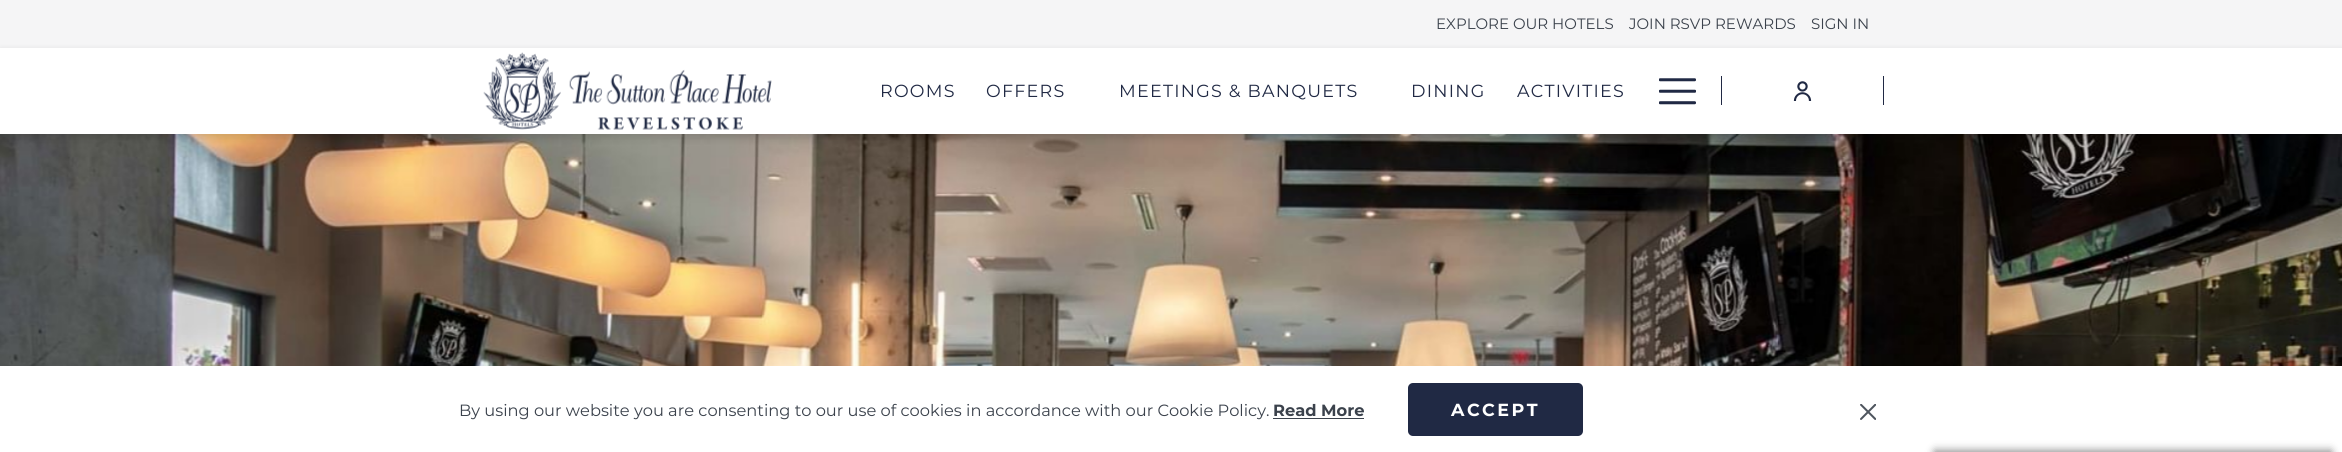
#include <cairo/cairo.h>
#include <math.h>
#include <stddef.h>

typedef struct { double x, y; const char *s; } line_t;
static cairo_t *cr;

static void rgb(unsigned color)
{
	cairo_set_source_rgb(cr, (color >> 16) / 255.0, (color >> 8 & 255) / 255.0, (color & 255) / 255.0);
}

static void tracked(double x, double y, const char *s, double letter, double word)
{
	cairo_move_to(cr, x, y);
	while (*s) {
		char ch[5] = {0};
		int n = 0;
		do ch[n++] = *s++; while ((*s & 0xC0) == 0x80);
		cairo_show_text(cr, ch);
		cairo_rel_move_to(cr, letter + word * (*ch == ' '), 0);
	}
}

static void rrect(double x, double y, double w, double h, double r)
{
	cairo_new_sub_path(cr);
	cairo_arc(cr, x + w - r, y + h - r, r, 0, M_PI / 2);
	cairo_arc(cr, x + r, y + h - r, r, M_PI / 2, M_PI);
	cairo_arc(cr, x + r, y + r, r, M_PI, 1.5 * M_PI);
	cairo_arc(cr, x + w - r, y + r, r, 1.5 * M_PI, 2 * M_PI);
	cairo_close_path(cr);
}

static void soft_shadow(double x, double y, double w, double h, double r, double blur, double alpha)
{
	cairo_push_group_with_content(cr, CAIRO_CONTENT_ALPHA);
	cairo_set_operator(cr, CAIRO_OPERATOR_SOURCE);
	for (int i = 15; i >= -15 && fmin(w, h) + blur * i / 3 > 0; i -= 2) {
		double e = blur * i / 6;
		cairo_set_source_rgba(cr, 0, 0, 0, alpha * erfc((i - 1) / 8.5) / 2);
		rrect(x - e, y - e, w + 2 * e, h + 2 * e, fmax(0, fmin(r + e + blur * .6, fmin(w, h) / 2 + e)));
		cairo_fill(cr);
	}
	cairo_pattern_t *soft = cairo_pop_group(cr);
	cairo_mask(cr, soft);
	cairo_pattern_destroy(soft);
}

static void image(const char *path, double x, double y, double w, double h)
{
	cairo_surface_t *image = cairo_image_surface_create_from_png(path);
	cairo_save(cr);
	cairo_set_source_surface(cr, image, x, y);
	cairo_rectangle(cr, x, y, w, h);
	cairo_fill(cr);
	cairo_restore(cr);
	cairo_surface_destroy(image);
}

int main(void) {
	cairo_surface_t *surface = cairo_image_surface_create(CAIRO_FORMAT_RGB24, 2342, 452);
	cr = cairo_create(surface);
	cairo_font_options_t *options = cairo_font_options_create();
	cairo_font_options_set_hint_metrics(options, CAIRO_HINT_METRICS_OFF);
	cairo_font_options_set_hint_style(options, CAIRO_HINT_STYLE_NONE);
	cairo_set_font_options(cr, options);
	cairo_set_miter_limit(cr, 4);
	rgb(0xffffff);
	cairo_paint(cr);
	rgb(0xf5f5f6);
	cairo_rectangle(cr, 0, 0, 2342, 48);
	cairo_fill(cr);
	image("img/4.png", 0, 134, 2342, 232);
	rgb(0x000000);
	soft_shadow(0, 51, 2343, 87, 0, 4, 0.15);
	rgb(0xffffff);
	cairo_rectangle(cr, 0, 48, 2342, 86);
	cairo_fill(cr);
	image("img/1.png", 483, 52, 289, 78);
	image("img/2.png", 1659, 78, 37, 27);
	rgb(0x202944);
	cairo_rectangle(cr, 1883, 76, 1, 29);
	cairo_fill(cr);
	cairo_rectangle(cr, 1721, 76, 1, 29);
	cairo_fill(cr);
	image("img/3.png", 1793, 81, 19, 20);
	rgb(0x3b424c);
	cairo_rectangle(cr, 1273, 418, 91, 1);
	cairo_fill(cr);
	rgb(0x202944);
	rrect(1408, 383, 175, 53, 5);
	cairo_fill(cr);
	image("img/5.png", 1860, 404, 16, 16);
	rgb(0x808080);
	soft_shadow(1935, 451, 396, 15, 0, 4.5, 1);
	cairo_select_font_face(cr, "Montserrat", CAIRO_FONT_SLANT_NORMAL, CAIRO_FONT_WEIGHT_NORMAL);
	cairo_set_font_size(cr, 15);
	rgb(0x3b424c);
	{
		static const line_t items[] = {
			{1436, 29, "EXPLORE OUR HOTELS"},
			{1629, 29, "JOIN RSVP REWARDS"},
			{1811, 29, "SIGN IN"},
		};
		for (size_t i = 0; i < sizeof items / sizeof *items; i++) {
			cairo_move_to(cr, items[i].x, items[i].y);
			cairo_show_text(cr, items[i].s);
		}
	}
	cairo_set_font_size(cr, 17.5);
	rgb(0x202944);
	{
		static const line_t items[] = {
			{880, 97, "ROOMS"},
			{986, 97, "OFFERS"},
			{1119, 97, "MEETINGS & BANQUETS"},
			{1411, 97, "DINING"},
			{1517, 97, "ACTIVITIES"},
		};
		for (size_t i = 0; i < sizeof items / sizeof *items; i++) {
			tracked(items[i].x, items[i].y, items[i].s, 1.25, 0);
		}
	}
	cairo_set_font_size(cr, 16.25);
	rgb(0x3b424c);
	cairo_move_to(cr, 459, 416);
	cairo_show_text(cr, "By using our website you are consenting to our use of cookies in accordance with our Cookie Policy.");
	cairo_select_font_face(cr, "Montserrat", CAIRO_FONT_SLANT_NORMAL, CAIRO_FONT_WEIGHT_BOLD);
	cairo_move_to(cr, 1273, 416);
	cairo_show_text(cr, "Read More");
	cairo_set_font_size(cr, 17.5);
	rgb(0xffffff);
	tracked(1451, 416, "ACCEPT", 2.5, 0);
	cairo_surface_write_to_png(surface, "page.png");
	cairo_font_options_destroy(options);
	cairo_destroy(cr);
	cairo_surface_destroy(surface);
	return 0;
}
